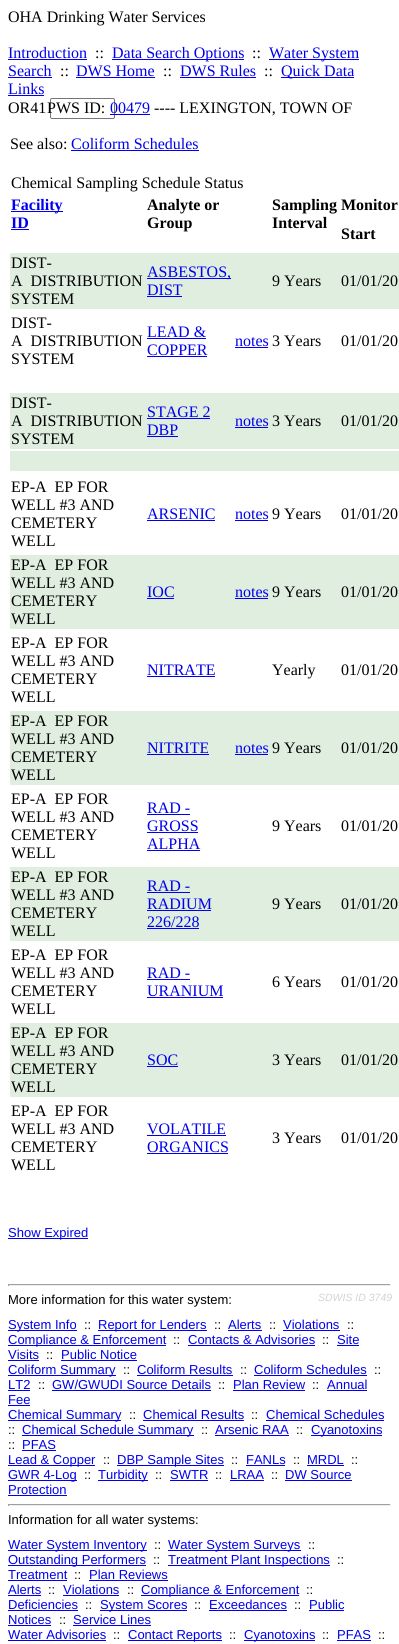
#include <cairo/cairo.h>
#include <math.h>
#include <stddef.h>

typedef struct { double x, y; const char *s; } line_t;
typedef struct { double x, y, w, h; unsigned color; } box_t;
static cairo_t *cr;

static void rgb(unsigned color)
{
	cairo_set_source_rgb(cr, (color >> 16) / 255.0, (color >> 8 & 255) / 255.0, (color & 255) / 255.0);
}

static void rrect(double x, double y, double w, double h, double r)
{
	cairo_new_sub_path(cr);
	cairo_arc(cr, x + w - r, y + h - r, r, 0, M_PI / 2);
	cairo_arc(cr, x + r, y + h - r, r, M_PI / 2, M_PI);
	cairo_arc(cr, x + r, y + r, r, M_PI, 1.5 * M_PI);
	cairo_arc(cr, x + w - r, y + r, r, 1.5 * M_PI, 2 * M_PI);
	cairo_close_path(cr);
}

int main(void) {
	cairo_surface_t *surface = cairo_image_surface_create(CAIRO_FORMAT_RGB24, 399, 1644);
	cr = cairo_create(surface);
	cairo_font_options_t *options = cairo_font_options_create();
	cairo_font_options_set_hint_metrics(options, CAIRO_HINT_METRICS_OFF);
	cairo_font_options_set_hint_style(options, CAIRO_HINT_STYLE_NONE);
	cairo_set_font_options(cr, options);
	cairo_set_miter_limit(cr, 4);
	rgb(0xffffff);
	cairo_paint(cr);
	{
		static const box_t items[] = {
			{8, 59, 79, 1, 0x0000ee},
			{112, 59, 132, 1, 0x0000ee},
			{269, 59, 90, 1, 0x0000ee},
			{8, 77, 44, 1, 0x0000ee},
			{76, 77, 79, 1, 0x0000ee},
			{180, 77, 76, 1, 0x0000ee},
			{281, 77, 73, 1, 0x0000ee},
			{8, 95, 36, 1, 0x0000ee},
		};
		for (size_t i = 0; i < sizeof items / sizeof *items; i++) {
			rgb(items[i].color);
			cairo_rectangle(cr, items[i].x, items[i].y, items[i].w, items[i].h);
			cairo_fill(cr);
		}
	}
	rrect(50.5, 98.5, 64, 20, 1.5);
	rgb(0x767676);
	cairo_set_line_width(cr, 1);
	cairo_stroke(cr);
	{
		static const box_t items[] = {
			{110, 114, 40, 1, 0x0000ee},
			{71, 150, 128, 1, 0x0000ee},
			{11, 211, 52, 1, 0x0000ee},
			{11, 229, 18, 1, 0x0000ee},
			{10, 253, 389, 56, 0xe0eee0},
			{147, 278, 84, 1, 0x0000ee},
			{147, 296, 35, 1, 0x0000ee},
			{147, 338, 59, 1, 0x0000ee},
			{147, 356, 60, 1, 0x0000ee},
			{235, 347, 33, 1, 0x0000ee},
			{10, 393, 389, 56, 0xe0eee0},
			{147, 418, 63, 1, 0x0000ee},
			{147, 436, 31, 1, 0x0000ee},
			{235, 427, 33, 1, 0x0000ee},
			{10, 451, 389, 20, 0xe0eee0},
			{147, 520, 68, 1, 0x0000ee},
			{235, 520, 33, 1, 0x0000ee},
			{10, 555, 389, 74, 0xe0eee0},
			{147, 598, 27, 1, 0x0000ee},
			{235, 598, 33, 1, 0x0000ee},
			{147, 676, 68, 1, 0x0000ee},
			{10, 711, 389, 74, 0xe0eee0},
			{147, 754, 62, 1, 0x0000ee},
			{235, 754, 33, 1, 0x0000ee},
			{147, 814, 43, 1, 0x0000ee},
			{147, 832, 51, 1, 0x0000ee},
			{147, 850, 53, 1, 0x0000ee},
			{10, 867, 389, 74, 0xe0eee0},
			{147, 892, 43, 1, 0x0000ee},
			{147, 910, 64, 1, 0x0000ee},
			{147, 928, 52, 1, 0x0000ee},
			{147, 979, 43, 1, 0x0000ee},
			{147, 997, 76, 1, 0x0000ee},
			{10, 1023, 389, 74, 0xe0eee0},
			{147, 1066, 31, 1, 0x0000ee},
			{147, 1135, 79, 1, 0x0000ee},
			{147, 1153, 81, 1, 0x0000ee},
			{8, 1238, 80, 1, 0x0000ee},
			{8, 1284, 383, 1, 0x9f9f9f},
			{390, 1284, 1, 2, 0xeeeeee},
			{8, 1285, 383, 1, 0xeeeeee},
			{8, 1284, 1, 2, 0x9f9f9f},
			{8, 1330, 69, 1, 0x0000ee},
			{98, 1330, 109, 1, 0x0000ee},
			{228, 1330, 34, 1, 0x0000ee},
			{283, 1330, 57, 1, 0x0000ee},
			{8, 1345, 158, 1, 0x0000ee},
			{188, 1345, 127, 1, 0x0000ee},
			{337, 1345, 22, 1, 0x0000ee},
			{8, 1360, 31, 1, 0x0000ee},
			{61, 1360, 76, 1, 0x0000ee},
			{8, 1375, 108, 1, 0x0000ee},
			{137, 1375, 96, 1, 0x0000ee},
			{254, 1375, 113, 1, 0x0000ee},
			{8, 1390, 22, 1, 0x0000ee},
			{52, 1390, 159, 1, 0x0000ee},
			{233, 1390, 72, 1, 0x0000ee},
			{327, 1390, 40, 1, 0x0000ee},
			{8, 1405, 22, 1, 0x0000ee},
			{8, 1420, 113, 1, 0x0000ee},
			{143, 1420, 101, 1, 0x0000ee},
			{266, 1420, 118, 1, 0x0000ee},
			{22, 1435, 172, 1, 0x0000ee},
			{215, 1435, 74, 1, 0x0000ee},
			{311, 1435, 71, 1, 0x0000ee},
			{22, 1450, 34, 1, 0x0000ee},
			{8, 1465, 87, 1, 0x0000ee},
			{117, 1465, 107, 1, 0x0000ee},
			{246, 1465, 39, 1, 0x0000ee},
			{307, 1465, 37, 1, 0x0000ee},
			{8, 1480, 69, 1, 0x0000ee},
			{98, 1480, 50, 1, 0x0000ee},
			{170, 1480, 38, 1, 0x0000ee},
			{230, 1480, 34, 1, 0x0000ee},
			{285, 1480, 67, 1, 0x0000ee},
			{8, 1495, 59, 1, 0x0000ee},
			{8, 1504, 383, 1, 0x9f9f9f},
			{390, 1504, 1, 2, 0xeeeeee},
			{8, 1505, 383, 1, 0xeeeeee},
			{8, 1504, 1, 2, 0x9f9f9f},
			{8, 1550, 139, 1, 0x0000ee},
			{168, 1550, 133, 1, 0x0000ee},
			{8, 1565, 138, 1, 0x0000ee},
			{168, 1565, 162, 1, 0x0000ee},
			{8, 1580, 59, 1, 0x0000ee},
			{89, 1580, 79, 1, 0x0000ee},
			{8, 1595, 33, 1, 0x0000ee},
			{63, 1595, 56, 1, 0x0000ee},
			{141, 1595, 158, 1, 0x0000ee},
			{8, 1610, 70, 1, 0x0000ee},
			{100, 1610, 87, 1, 0x0000ee},
			{209, 1610, 78, 1, 0x0000ee},
			{309, 1610, 35, 1, 0x0000ee},
			{8, 1625, 43, 1, 0x0000ee},
			{73, 1625, 78, 1, 0x0000ee},
			{8, 1640, 98, 1, 0x0000ee},
			{128, 1640, 94, 1, 0x0000ee},
			{244, 1640, 71, 1, 0x0000ee},
			{337, 1640, 34, 1, 0x0000ee},
		};
		for (size_t i = 0; i < sizeof items / sizeof *items; i++) {
			rgb(items[i].color);
			cairo_rectangle(cr, items[i].x, items[i].y, items[i].w, items[i].h);
			cairo_fill(cr);
		}
	}
	cairo_select_font_face(cr, "Liberation Serif", CAIRO_FONT_SLANT_NORMAL, CAIRO_FONT_WEIGHT_NORMAL);
	cairo_set_font_size(cr, 16);
	rgb(0x000000);
	cairo_move_to(cr, 8, 22);
	cairo_show_text(cr, "OHA Drinking Water Services");
	rgb(0x0000ee);
	cairo_move_to(cr, 8, 58);
	cairo_show_text(cr, "Introduction");
	rgb(0x000000);
	cairo_move_to(cr, 95, 58);
	cairo_show_text(cr, "::");
	rgb(0x0000ee);
	cairo_move_to(cr, 112, 58);
	cairo_show_text(cr, "Data Search Options");
	rgb(0x000000);
	cairo_move_to(cr, 252, 58);
	cairo_show_text(cr, "::");
	rgb(0x0000ee);
	cairo_move_to(cr, 269, 58);
	cairo_show_text(cr, "Water System");
	cairo_move_to(cr, 8, 76);
	cairo_show_text(cr, "Search");
	rgb(0x000000);
	cairo_move_to(cr, 60, 76);
	cairo_show_text(cr, "::");
	rgb(0x0000ee);
	cairo_move_to(cr, 76, 76);
	cairo_show_text(cr, "DWS Home");
	rgb(0x000000);
	cairo_move_to(cr, 163, 76);
	cairo_show_text(cr, "::");
	rgb(0x0000ee);
	cairo_move_to(cr, 180, 76);
	cairo_show_text(cr, "DWS Rules");
	rgb(0x000000);
	cairo_move_to(cr, 264, 76);
	cairo_show_text(cr, "::");
	rgb(0x0000ee);
	cairo_move_to(cr, 281, 76);
	cairo_show_text(cr, "Quick Data");
	cairo_move_to(cr, 8, 94);
	cairo_show_text(cr, "Links");
	rgb(0x000000);
	cairo_move_to(cr, 8, 113);
	cairo_show_text(cr, "OR41");
	cairo_move_to(cr, 47, 113);
	cairo_show_text(cr, "PWS ID:");
	rgb(0x0000ee);
	cairo_move_to(cr, 110, 113);
	cairo_show_text(cr, "00479");
	rgb(0x000000);
	cairo_move_to(cr, 154, 113);
	cairo_show_text(cr, "---- LEXINGTON, TOWN OF");
	cairo_move_to(cr, 10, 149);
	cairo_show_text(cr, "See also:");
	rgb(0x0000ee);
	cairo_move_to(cr, 71, 149);
	cairo_show_text(cr, "Coliform Schedules");
	rgb(0x000000);
	cairo_move_to(cr, 11, 188);
	cairo_show_text(cr, "Chemical Sampling Schedule Status");
	cairo_select_font_face(cr, "Liberation Serif", CAIRO_FONT_SLANT_NORMAL, CAIRO_FONT_WEIGHT_BOLD);
	rgb(0x0000ee);
	cairo_move_to(cr, 11, 210);
	cairo_show_text(cr, "Facility");
	cairo_move_to(cr, 11, 228);
	cairo_show_text(cr, "ID");
	rgb(0x000000);
	{
		static const line_t items[] = {
			{147, 210, "Analyte or"},
			{147, 228, "Group"},
			{272, 210, "Sampling Monitor"},
			{272, 228, "Interval"},
			{341, 239, "Start"},
		};
		for (size_t i = 0; i < sizeof items / sizeof *items; i++) {
			cairo_move_to(cr, items[i].x, items[i].y);
			cairo_show_text(cr, items[i].s);
		}
	}
	cairo_select_font_face(cr, "Liberation Serif", CAIRO_FONT_SLANT_NORMAL, CAIRO_FONT_WEIGHT_NORMAL);
	{
		static const line_t items[] = {
			{11, 268, "DIST-"},
			{11, 286, "A  DISTRIBUTION"},
			{11, 304, "SYSTEM"},
		};
		for (size_t i = 0; i < sizeof items / sizeof *items; i++) {
			cairo_move_to(cr, items[i].x, items[i].y);
			cairo_show_text(cr, items[i].s);
		}
	}
	rgb(0x0000ee);
	cairo_move_to(cr, 147, 277);
	cairo_show_text(cr, "ASBESTOS,");
	cairo_move_to(cr, 147, 295);
	cairo_show_text(cr, "DIST");
	rgb(0x000000);
	{
		static const line_t items[] = {
			{272, 286, "9 Years"},
			{341, 286, "01/01/20"},
			{11, 328, "DIST-"},
			{11, 346, "A  DISTRIBUTION"},
			{11, 364, "SYSTEM"},
		};
		for (size_t i = 0; i < sizeof items / sizeof *items; i++) {
			cairo_move_to(cr, items[i].x, items[i].y);
			cairo_show_text(cr, items[i].s);
		}
	}
	rgb(0x0000ee);
	{
		static const line_t items[] = {
			{147, 337, "LEAD &"},
			{147, 355, "COPPER"},
			{235, 346, "notes"},
		};
		for (size_t i = 0; i < sizeof items / sizeof *items; i++) {
			cairo_move_to(cr, items[i].x, items[i].y);
			cairo_show_text(cr, items[i].s);
		}
	}
	rgb(0x000000);
	{
		static const line_t items[] = {
			{272, 346, "3 Years"},
			{341, 346, "01/01/20"},
			{11, 408, "DIST-"},
			{11, 426, "A  DISTRIBUTION"},
			{11, 444, "SYSTEM"},
		};
		for (size_t i = 0; i < sizeof items / sizeof *items; i++) {
			cairo_move_to(cr, items[i].x, items[i].y);
			cairo_show_text(cr, items[i].s);
		}
	}
	rgb(0x0000ee);
	{
		static const line_t items[] = {
			{147, 417, "STAGE 2"},
			{147, 435, "DBP"},
			{235, 426, "notes"},
		};
		for (size_t i = 0; i < sizeof items / sizeof *items; i++) {
			cairo_move_to(cr, items[i].x, items[i].y);
			cairo_show_text(cr, items[i].s);
		}
	}
	rgb(0x000000);
	{
		static const line_t items[] = {
			{272, 426, "3 Years"},
			{341, 426, "01/01/20"},
			{11, 492, "EP-A  EP FOR"},
			{11, 510, "WELL #3 AND"},
			{11, 528, "CEMETERY"},
			{11, 546, "WELL"},
		};
		for (size_t i = 0; i < sizeof items / sizeof *items; i++) {
			cairo_move_to(cr, items[i].x, items[i].y);
			cairo_show_text(cr, items[i].s);
		}
	}
	rgb(0x0000ee);
	cairo_move_to(cr, 147, 519);
	cairo_show_text(cr, "ARSENIC");
	cairo_move_to(cr, 235, 519);
	cairo_show_text(cr, "notes");
	rgb(0x000000);
	{
		static const line_t items[] = {
			{272, 519, "9 Years"},
			{341, 519, "01/01/20"},
			{11, 570, "EP-A  EP FOR"},
			{11, 588, "WELL #3 AND"},
			{11, 606, "CEMETERY"},
			{11, 624, "WELL"},
		};
		for (size_t i = 0; i < sizeof items / sizeof *items; i++) {
			cairo_move_to(cr, items[i].x, items[i].y);
			cairo_show_text(cr, items[i].s);
		}
	}
	rgb(0x0000ee);
	cairo_move_to(cr, 147, 597);
	cairo_show_text(cr, "IOC");
	cairo_move_to(cr, 235, 597);
	cairo_show_text(cr, "notes");
	rgb(0x000000);
	{
		static const line_t items[] = {
			{272, 597, "9 Years"},
			{341, 597, "01/01/20"},
			{11, 648, "EP-A  EP FOR"},
			{11, 666, "WELL #3 AND"},
			{11, 684, "CEMETERY"},
			{11, 702, "WELL"},
		};
		for (size_t i = 0; i < sizeof items / sizeof *items; i++) {
			cairo_move_to(cr, items[i].x, items[i].y);
			cairo_show_text(cr, items[i].s);
		}
	}
	rgb(0x0000ee);
	cairo_move_to(cr, 147, 675);
	cairo_show_text(cr, "NITRATE");
	rgb(0x000000);
	{
		static const line_t items[] = {
			{272, 675, "Yearly"},
			{341, 675, "01/01/20"},
			{11, 726, "EP-A  EP FOR"},
			{11, 744, "WELL #3 AND"},
			{11, 762, "CEMETERY"},
			{11, 780, "WELL"},
		};
		for (size_t i = 0; i < sizeof items / sizeof *items; i++) {
			cairo_move_to(cr, items[i].x, items[i].y);
			cairo_show_text(cr, items[i].s);
		}
	}
	rgb(0x0000ee);
	cairo_move_to(cr, 147, 753);
	cairo_show_text(cr, "NITRITE");
	cairo_move_to(cr, 235, 753);
	cairo_show_text(cr, "notes");
	rgb(0x000000);
	{
		static const line_t items[] = {
			{272, 753, "9 Years"},
			{341, 753, "01/01/20"},
			{11, 804, "EP-A  EP FOR"},
			{11, 822, "WELL #3 AND"},
			{11, 840, "CEMETERY"},
			{11, 858, "WELL"},
		};
		for (size_t i = 0; i < sizeof items / sizeof *items; i++) {
			cairo_move_to(cr, items[i].x, items[i].y);
			cairo_show_text(cr, items[i].s);
		}
	}
	rgb(0x0000ee);
	{
		static const line_t items[] = {
			{147, 813, "RAD -"},
			{147, 831, "GROSS"},
			{147, 849, "ALPHA"},
		};
		for (size_t i = 0; i < sizeof items / sizeof *items; i++) {
			cairo_move_to(cr, items[i].x, items[i].y);
			cairo_show_text(cr, items[i].s);
		}
	}
	rgb(0x000000);
	{
		static const line_t items[] = {
			{272, 831, "9 Years"},
			{341, 831, "01/01/20"},
			{11, 882, "EP-A  EP FOR"},
			{11, 900, "WELL #3 AND"},
			{11, 918, "CEMETERY"},
			{11, 936, "WELL"},
		};
		for (size_t i = 0; i < sizeof items / sizeof *items; i++) {
			cairo_move_to(cr, items[i].x, items[i].y);
			cairo_show_text(cr, items[i].s);
		}
	}
	rgb(0x0000ee);
	{
		static const line_t items[] = {
			{147, 891, "RAD -"},
			{147, 909, "RADIUM"},
			{147, 927, "226/228"},
		};
		for (size_t i = 0; i < sizeof items / sizeof *items; i++) {
			cairo_move_to(cr, items[i].x, items[i].y);
			cairo_show_text(cr, items[i].s);
		}
	}
	rgb(0x000000);
	{
		static const line_t items[] = {
			{272, 909, "9 Years"},
			{341, 909, "01/01/20"},
			{11, 960, "EP-A  EP FOR"},
			{11, 978, "WELL #3 AND"},
			{11, 996, "CEMETERY"},
			{11, 1014, "WELL"},
		};
		for (size_t i = 0; i < sizeof items / sizeof *items; i++) {
			cairo_move_to(cr, items[i].x, items[i].y);
			cairo_show_text(cr, items[i].s);
		}
	}
	rgb(0x0000ee);
	cairo_move_to(cr, 147, 978);
	cairo_show_text(cr, "RAD -");
	cairo_move_to(cr, 147, 996);
	cairo_show_text(cr, "URANIUM");
	rgb(0x000000);
	{
		static const line_t items[] = {
			{272, 987, "6 Years"},
			{341, 987, "01/01/20"},
			{11, 1038, "EP-A  EP FOR"},
			{11, 1056, "WELL #3 AND"},
			{11, 1074, "CEMETERY"},
			{11, 1092, "WELL"},
		};
		for (size_t i = 0; i < sizeof items / sizeof *items; i++) {
			cairo_move_to(cr, items[i].x, items[i].y);
			cairo_show_text(cr, items[i].s);
		}
	}
	rgb(0x0000ee);
	cairo_move_to(cr, 147, 1065);
	cairo_show_text(cr, "SOC");
	rgb(0x000000);
	{
		static const line_t items[] = {
			{272, 1065, "3 Years"},
			{341, 1065, "01/01/20"},
			{11, 1116, "EP-A  EP FOR"},
			{11, 1134, "WELL #3 AND"},
			{11, 1152, "CEMETERY"},
			{11, 1170, "WELL"},
		};
		for (size_t i = 0; i < sizeof items / sizeof *items; i++) {
			cairo_move_to(cr, items[i].x, items[i].y);
			cairo_show_text(cr, items[i].s);
		}
	}
	rgb(0x0000ee);
	cairo_move_to(cr, 147, 1134);
	cairo_show_text(cr, "VOLATILE");
	cairo_move_to(cr, 147, 1152);
	cairo_show_text(cr, "ORGANICS");
	rgb(0x000000);
	cairo_move_to(cr, 272, 1143);
	cairo_show_text(cr, "3 Years");
	cairo_move_to(cr, 341, 1143);
	cairo_show_text(cr, "01/01/20");
	cairo_select_font_face(cr, "Liberation Sans", CAIRO_FONT_SLANT_NORMAL, CAIRO_FONT_WEIGHT_NORMAL);
	cairo_set_font_size(cr, 13);
	rgb(0x0000ee);
	cairo_move_to(cr, 8, 1237);
	cairo_show_text(cr, "Show Expired");
	rgb(0x000000);
	cairo_move_to(cr, 8, 1304);
	cairo_show_text(cr, "More information for this water system:");
	cairo_select_font_face(cr, "Liberation Sans", CAIRO_FONT_SLANT_ITALIC, CAIRO_FONT_WEIGHT_NORMAL);
	cairo_set_font_size(cr, 10.5);
	rgb(0xd3d3d3);
	cairo_move_to(cr, 318, 1301);
	cairo_show_text(cr, "SDWIS ID 3749");
	cairo_select_font_face(cr, "Liberation Sans", CAIRO_FONT_SLANT_NORMAL, CAIRO_FONT_WEIGHT_NORMAL);
	cairo_set_font_size(cr, 13);
	rgb(0x0000ee);
	cairo_move_to(cr, 8, 1329);
	cairo_show_text(cr, "System Info");
	rgb(0x000000);
	cairo_move_to(cr, 84, 1329);
	cairo_show_text(cr, "::");
	rgb(0x0000ee);
	cairo_move_to(cr, 98, 1329);
	cairo_show_text(cr, "Report for Lenders");
	rgb(0x000000);
	cairo_move_to(cr, 214, 1329);
	cairo_show_text(cr, "::");
	rgb(0x0000ee);
	cairo_move_to(cr, 228, 1329);
	cairo_show_text(cr, "Alerts");
	rgb(0x000000);
	cairo_move_to(cr, 269, 1329);
	cairo_show_text(cr, "::");
	rgb(0x0000ee);
	cairo_move_to(cr, 283, 1329);
	cairo_show_text(cr, "Violations");
	rgb(0x000000);
	cairo_move_to(cr, 347, 1329);
	cairo_show_text(cr, "::");
	rgb(0x0000ee);
	cairo_move_to(cr, 8, 1344);
	cairo_show_text(cr, "Compliance & Enforcement");
	rgb(0x000000);
	cairo_move_to(cr, 173, 1344);
	cairo_show_text(cr, "::");
	rgb(0x0000ee);
	cairo_move_to(cr, 188, 1344);
	cairo_show_text(cr, "Contacts & Advisories");
	rgb(0x000000);
	cairo_move_to(cr, 322, 1344);
	cairo_show_text(cr, "::");
	rgb(0x0000ee);
	cairo_move_to(cr, 337, 1344);
	cairo_show_text(cr, "Site");
	cairo_move_to(cr, 8, 1359);
	cairo_show_text(cr, "Visits");
	rgb(0x000000);
	cairo_move_to(cr, 46, 1359);
	cairo_show_text(cr, "::");
	rgb(0x0000ee);
	cairo_move_to(cr, 61, 1359);
	cairo_show_text(cr, "Public Notice");
	cairo_move_to(cr, 8, 1374);
	cairo_show_text(cr, "Coliform Summary");
	rgb(0x000000);
	cairo_move_to(cr, 123, 1374);
	cairo_show_text(cr, "::");
	rgb(0x0000ee);
	cairo_move_to(cr, 137, 1374);
	cairo_show_text(cr, "Coliform Results");
	rgb(0x000000);
	cairo_move_to(cr, 240, 1374);
	cairo_show_text(cr, "::");
	rgb(0x0000ee);
	cairo_move_to(cr, 254, 1374);
	cairo_show_text(cr, "Coliform Schedules");
	rgb(0x000000);
	cairo_move_to(cr, 374, 1374);
	cairo_show_text(cr, "::");
	rgb(0x0000ee);
	cairo_move_to(cr, 8, 1389);
	cairo_show_text(cr, "LT2");
	rgb(0x000000);
	cairo_move_to(cr, 38, 1389);
	cairo_show_text(cr, "::");
	rgb(0x0000ee);
	cairo_move_to(cr, 52, 1389);
	cairo_show_text(cr, "GW/GWUDI Source Details");
	rgb(0x000000);
	cairo_move_to(cr, 218, 1389);
	cairo_show_text(cr, "::");
	rgb(0x0000ee);
	cairo_move_to(cr, 233, 1389);
	cairo_show_text(cr, "Plan Review");
	rgb(0x000000);
	cairo_move_to(cr, 312, 1389);
	cairo_show_text(cr, "::");
	rgb(0x0000ee);
	{
		static const line_t items[] = {
			{327, 1389, "Annual"},
			{8, 1404, "Fee"},
			{8, 1419, "Chemical Summary"},
		};
		for (size_t i = 0; i < sizeof items / sizeof *items; i++) {
			cairo_move_to(cr, items[i].x, items[i].y);
			cairo_show_text(cr, items[i].s);
		}
	}
	rgb(0x000000);
	cairo_move_to(cr, 129, 1419);
	cairo_show_text(cr, "::");
	rgb(0x0000ee);
	cairo_move_to(cr, 143, 1419);
	cairo_show_text(cr, "Chemical Results");
	rgb(0x000000);
	cairo_move_to(cr, 251, 1419);
	cairo_show_text(cr, "::");
	rgb(0x0000ee);
	cairo_move_to(cr, 266, 1419);
	cairo_show_text(cr, "Chemical Schedules");
	rgb(0x000000);
	cairo_move_to(cr, 8, 1434);
	cairo_show_text(cr, "::");
	rgb(0x0000ee);
	cairo_move_to(cr, 22, 1434);
	cairo_show_text(cr, "Chemical Schedule Summary");
	rgb(0x000000);
	cairo_move_to(cr, 201, 1434);
	cairo_show_text(cr, "::");
	rgb(0x0000ee);
	cairo_move_to(cr, 215, 1434);
	cairo_show_text(cr, "Arsenic RAA");
	rgb(0x000000);
	cairo_move_to(cr, 296, 1434);
	cairo_show_text(cr, "::");
	rgb(0x0000ee);
	cairo_move_to(cr, 311, 1434);
	cairo_show_text(cr, "Cyanotoxins");
	rgb(0x000000);
	cairo_move_to(cr, 8, 1449);
	cairo_show_text(cr, "::");
	rgb(0x0000ee);
	cairo_move_to(cr, 22, 1449);
	cairo_show_text(cr, "PFAS");
	cairo_move_to(cr, 8, 1464);
	cairo_show_text(cr, "Lead & Copper");
	rgb(0x000000);
	cairo_move_to(cr, 103, 1464);
	cairo_show_text(cr, "::");
	rgb(0x0000ee);
	cairo_move_to(cr, 117, 1464);
	cairo_show_text(cr, "DBP Sample Sites");
	rgb(0x000000);
	cairo_move_to(cr, 231, 1464);
	cairo_show_text(cr, "::");
	rgb(0x0000ee);
	cairo_move_to(cr, 246, 1464);
	cairo_show_text(cr, "FANLs");
	rgb(0x000000);
	cairo_move_to(cr, 293, 1464);
	cairo_show_text(cr, "::");
	rgb(0x0000ee);
	cairo_move_to(cr, 307, 1464);
	cairo_show_text(cr, "MRDL");
	rgb(0x000000);
	cairo_move_to(cr, 351, 1464);
	cairo_show_text(cr, "::");
	rgb(0x0000ee);
	cairo_move_to(cr, 8, 1479);
	cairo_show_text(cr, "GWR 4-Log");
	rgb(0x000000);
	cairo_move_to(cr, 84, 1479);
	cairo_show_text(cr, "::");
	rgb(0x0000ee);
	cairo_move_to(cr, 98, 1479);
	cairo_show_text(cr, "Turbidity");
	rgb(0x000000);
	cairo_move_to(cr, 155, 1479);
	cairo_show_text(cr, "::");
	rgb(0x0000ee);
	cairo_move_to(cr, 170, 1479);
	cairo_show_text(cr, "SWTR");
	rgb(0x000000);
	cairo_move_to(cr, 215, 1479);
	cairo_show_text(cr, "::");
	rgb(0x0000ee);
	cairo_move_to(cr, 230, 1479);
	cairo_show_text(cr, "LRAA");
	rgb(0x000000);
	cairo_move_to(cr, 271, 1479);
	cairo_show_text(cr, "::");
	rgb(0x0000ee);
	cairo_move_to(cr, 285, 1479);
	cairo_show_text(cr, "DW Source");
	cairo_move_to(cr, 8, 1494);
	cairo_show_text(cr, "Protection");
	rgb(0x000000);
	cairo_move_to(cr, 8, 1524);
	cairo_show_text(cr, "Information for all water systems:");
	rgb(0x0000ee);
	cairo_move_to(cr, 8, 1549);
	cairo_show_text(cr, "Water System Inventory");
	rgb(0x000000);
	cairo_move_to(cr, 154, 1549);
	cairo_show_text(cr, "::");
	rgb(0x0000ee);
	cairo_move_to(cr, 168, 1549);
	cairo_show_text(cr, "Water System Surveys");
	rgb(0x000000);
	cairo_move_to(cr, 308, 1549);
	cairo_show_text(cr, "::");
	rgb(0x0000ee);
	cairo_move_to(cr, 8, 1564);
	cairo_show_text(cr, "Outstanding Performers");
	rgb(0x000000);
	cairo_move_to(cr, 153, 1564);
	cairo_show_text(cr, "::");
	rgb(0x0000ee);
	cairo_move_to(cr, 168, 1564);
	cairo_show_text(cr, "Treatment Plant Inspections");
	rgb(0x000000);
	cairo_move_to(cr, 337, 1564);
	cairo_show_text(cr, "::");
	rgb(0x0000ee);
	cairo_move_to(cr, 8, 1579);
	cairo_show_text(cr, "Treatment");
	rgb(0x000000);
	cairo_move_to(cr, 74, 1579);
	cairo_show_text(cr, "::");
	rgb(0x0000ee);
	cairo_move_to(cr, 89, 1579);
	cairo_show_text(cr, "Plan Reviews");
	cairo_move_to(cr, 8, 1594);
	cairo_show_text(cr, "Alerts");
	rgb(0x000000);
	cairo_move_to(cr, 48, 1594);
	cairo_show_text(cr, "::");
	rgb(0x0000ee);
	cairo_move_to(cr, 63, 1594);
	cairo_show_text(cr, "Violations");
	rgb(0x000000);
	cairo_move_to(cr, 127, 1594);
	cairo_show_text(cr, "::");
	rgb(0x0000ee);
	cairo_move_to(cr, 141, 1594);
	cairo_show_text(cr, "Compliance & Enforcement");
	rgb(0x000000);
	cairo_move_to(cr, 306, 1594);
	cairo_show_text(cr, "::");
	rgb(0x0000ee);
	cairo_move_to(cr, 8, 1609);
	cairo_show_text(cr, "Deficiencies");
	rgb(0x000000);
	cairo_move_to(cr, 85, 1609);
	cairo_show_text(cr, "::");
	rgb(0x0000ee);
	cairo_move_to(cr, 100, 1609);
	cairo_show_text(cr, "System Scores");
	rgb(0x000000);
	cairo_move_to(cr, 194, 1609);
	cairo_show_text(cr, "::");
	rgb(0x0000ee);
	cairo_move_to(cr, 209, 1609);
	cairo_show_text(cr, "Exceedances");
	rgb(0x000000);
	cairo_move_to(cr, 294, 1609);
	cairo_show_text(cr, "::");
	rgb(0x0000ee);
	cairo_move_to(cr, 309, 1609);
	cairo_show_text(cr, "Public");
	cairo_move_to(cr, 8, 1624);
	cairo_show_text(cr, "Notices");
	rgb(0x000000);
	cairo_move_to(cr, 59, 1624);
	cairo_show_text(cr, "::");
	rgb(0x0000ee);
	cairo_move_to(cr, 73, 1624);
	cairo_show_text(cr, "Service Lines");
	cairo_move_to(cr, 8, 1639);
	cairo_show_text(cr, "Water Advisories");
	rgb(0x000000);
	cairo_move_to(cr, 113, 1639);
	cairo_show_text(cr, "::");
	rgb(0x0000ee);
	cairo_move_to(cr, 128, 1639);
	cairo_show_text(cr, "Contact Reports");
	rgb(0x000000);
	cairo_move_to(cr, 229, 1639);
	cairo_show_text(cr, "::");
	rgb(0x0000ee);
	cairo_move_to(cr, 244, 1639);
	cairo_show_text(cr, "Cyanotoxins");
	rgb(0x000000);
	cairo_move_to(cr, 322, 1639);
	cairo_show_text(cr, "::");
	rgb(0x0000ee);
	cairo_move_to(cr, 337, 1639);
	cairo_show_text(cr, "PFAS");
	rgb(0x000000);
	cairo_move_to(cr, 378, 1639);
	cairo_show_text(cr, "::");
	cairo_surface_write_to_png(surface, "page.png");
	cairo_font_options_destroy(options);
	cairo_destroy(cr);
	cairo_surface_destroy(surface);
	return 0;
}
